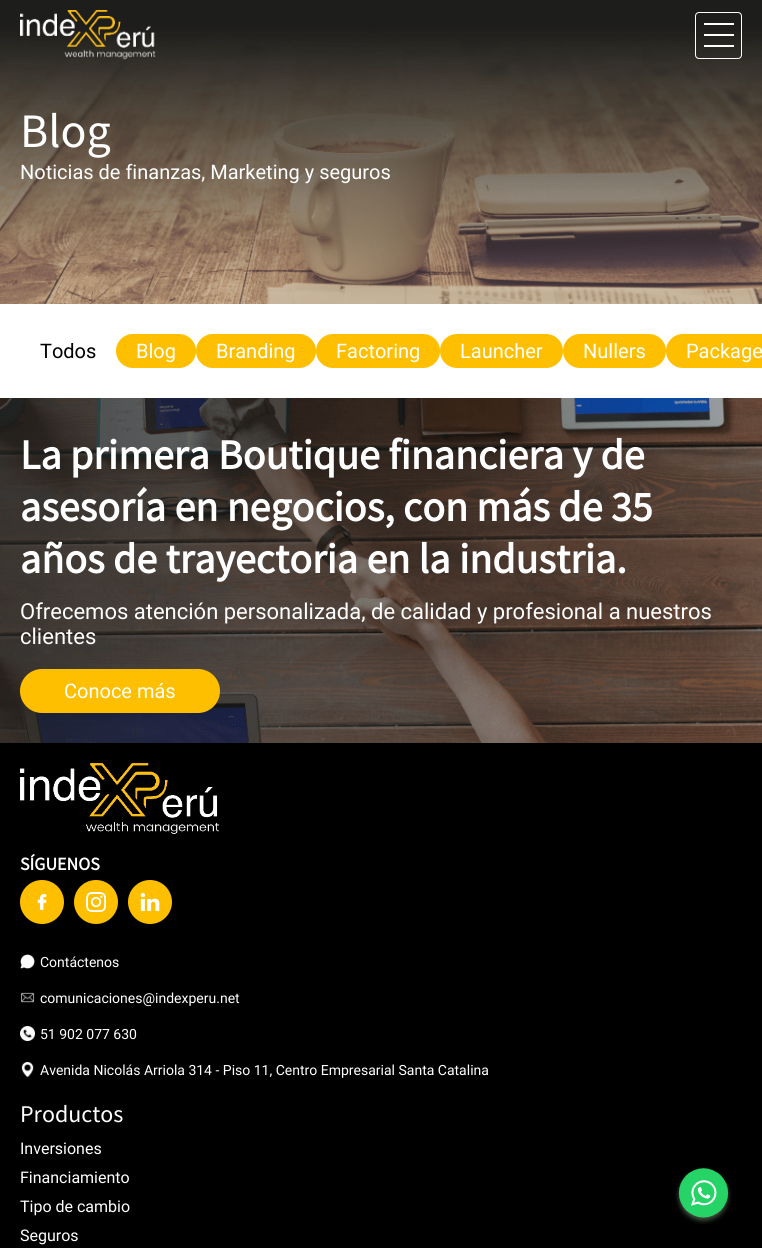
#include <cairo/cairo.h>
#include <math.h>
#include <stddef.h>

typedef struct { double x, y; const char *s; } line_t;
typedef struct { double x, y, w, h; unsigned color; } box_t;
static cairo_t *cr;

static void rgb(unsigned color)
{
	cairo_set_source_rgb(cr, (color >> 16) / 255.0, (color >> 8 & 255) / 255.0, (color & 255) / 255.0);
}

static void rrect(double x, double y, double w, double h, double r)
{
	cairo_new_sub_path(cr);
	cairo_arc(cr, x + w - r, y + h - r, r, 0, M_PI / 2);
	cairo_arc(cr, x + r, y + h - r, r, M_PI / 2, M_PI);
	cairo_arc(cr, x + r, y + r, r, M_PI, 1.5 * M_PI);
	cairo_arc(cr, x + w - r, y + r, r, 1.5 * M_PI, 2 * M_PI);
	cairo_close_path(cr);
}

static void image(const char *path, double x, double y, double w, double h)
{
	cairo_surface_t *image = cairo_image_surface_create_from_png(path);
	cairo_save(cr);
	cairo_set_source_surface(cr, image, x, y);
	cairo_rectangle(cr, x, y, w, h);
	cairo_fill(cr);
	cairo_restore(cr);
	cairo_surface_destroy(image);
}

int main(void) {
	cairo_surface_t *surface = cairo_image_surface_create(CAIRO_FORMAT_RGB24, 762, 1248);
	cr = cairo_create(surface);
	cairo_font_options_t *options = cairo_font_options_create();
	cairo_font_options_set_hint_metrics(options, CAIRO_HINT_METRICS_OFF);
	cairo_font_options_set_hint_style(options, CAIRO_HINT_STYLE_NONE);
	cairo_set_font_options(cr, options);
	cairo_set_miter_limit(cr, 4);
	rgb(0xffffff);
	cairo_paint(cr);
	image("img/2.png", 0, 0, 762, 304);
	image("img/1.png", 20, 10, 136, 50);
	rrect(695.5, 12.5, 46, 46, 3.5);
	rgb(0xffffff);
	cairo_set_line_width(cr, 1);
	cairo_stroke(cr);
	{
		static const box_t items[] = {
			{704, 34, 30, 2, 0xffffff},
			{704, 23, 30, 2, 0xffffff},
			{704, 45, 30, 2, 0xffffff},
		};
		for (size_t i = 0; i < sizeof items / sizeof *items; i++) {
			rgb(items[i].color);
			cairo_rectangle(cr, items[i].x, items[i].y, items[i].w, items[i].h);
			cairo_fill(cr);
		}
	}
	rgb(0xfebf00);
	rrect(116, 334, 80, 34, 17);
	cairo_fill(cr);
	rrect(196, 334, 120, 34, 17);
	cairo_fill(cr);
	rrect(316, 334, 124, 34, 17);
	cairo_fill(cr);
	rrect(440, 334, 123, 34, 17);
	cairo_fill(cr);
	rrect(563, 334, 103, 34, 17);
	cairo_fill(cr);
	rrect(666, 334, 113, 34, 17);
	cairo_fill(cr);
	image("img/3.png", 0, 398, 762, 345);
	rrect(20, 669, 200, 44, 22);
	cairo_fill(cr);
	rgb(0x000000);
	cairo_rectangle(cr, 0, 743, 762, 505);
	cairo_fill(cr);
	image("img/4.png", 20, 763, 200, 71);
	rgb(0xfebf00);
	cairo_arc(cr, 42, 902, 22, 0, 2 * M_PI);
	cairo_fill(cr);
	image("img/5.png", 37, 894, 10, 16);
	cairo_arc(cr, 96, 902, 22, 0, 2 * M_PI);
	cairo_fill(cr);
	image("img/6.png", 86, 892, 20, 20);
	cairo_arc(cr, 150, 902, 22, 0, 2 * M_PI);
	cairo_fill(cr);
	image("img/7.png", 140, 892, 20, 20);
	image("img/8.png", 20, 954, 15, 15);
	image("img/9.png", 21, 992, 14, 11);
	image("img/10.png", 20, 1026, 15, 15);
	image("img/11.png", 21, 1062, 13, 15);
	image("img/12.png", 675, 1167, 57, 57);
	cairo_select_font_face(cr, "Source Sans Pro", CAIRO_FONT_SLANT_NORMAL, CAIRO_FONT_WEIGHT_NORMAL);
	cairo_set_font_size(cr, 48);
	rgb(0xffffff);
	cairo_move_to(cr, 20, 147);
	cairo_show_text(cr, "Blog");
	cairo_select_font_face(cr, "Roboto", CAIRO_FONT_SLANT_NORMAL, CAIRO_FONT_WEIGHT_NORMAL);
	cairo_set_font_size(cr, 20);
	cairo_move_to(cr, 20, 179);
	cairo_show_text(cr, "Noticias de finanzas, Marketing y seguros");
	rgb(0x000000);
	cairo_move_to(cr, 40, 358);
	cairo_show_text(cr, "Todos");
	rgb(0xffffff);
	{
		static const line_t items[] = {
			{136, 358, "Blog"},
			{216, 358, "Branding"},
			{336, 358, "Factoring"},
			{460, 358, "Launcher"},
			{583, 358, "Nullers"},
			{686, 358, "Package"},
		};
		for (size_t i = 0; i < sizeof items / sizeof *items; i++) {
			cairo_move_to(cr, items[i].x, items[i].y);
			cairo_show_text(cr, items[i].s);
		}
	}
	cairo_select_font_face(cr, "Source Sans Pro", CAIRO_FONT_SLANT_NORMAL, CAIRO_FONT_WEIGHT_BOLD);
	cairo_set_font_size(cr, 42);
	{
		static const line_t items[] = {
			{20, 469, "La primera Boutique financiera y de"},
			{20, 521, "asesoría en negocios, con más de 35"},
			{20, 573, "años de trayectoria en la industria."},
		};
		for (size_t i = 0; i < sizeof items / sizeof *items; i++) {
			cairo_move_to(cr, items[i].x, items[i].y);
			cairo_show_text(cr, items[i].s);
		}
	}
	cairo_select_font_face(cr, "Roboto", CAIRO_FONT_SLANT_NORMAL, CAIRO_FONT_WEIGHT_NORMAL);
	cairo_set_font_size(cr, 22);
	cairo_move_to(cr, 20, 619);
	cairo_show_text(cr, "Ofrecemos atención personalizada, de calidad y profesional a nuestros");
	cairo_move_to(cr, 20, 644);
	cairo_show_text(cr, "clientes");
	cairo_set_font_size(cr, 20);
	cairo_move_to(cr, 64, 698);
	cairo_show_text(cr, "Conoce más");
	cairo_select_font_face(cr, "Source Sans Pro", CAIRO_FONT_SLANT_NORMAL, CAIRO_FONT_WEIGHT_BOLD);
	cairo_set_font_size(cr, 18);
	cairo_move_to(cr, 20, 870);
	cairo_show_text(cr, "SÍGUENOS");
	cairo_select_font_face(cr, "Roboto", CAIRO_FONT_SLANT_NORMAL, CAIRO_FONT_WEIGHT_NORMAL);
	cairo_set_font_size(cr, 14);
	{
		static const line_t items[] = {
			{40, 967, "Contáctenos"},
			{40, 1003, "comunicaciones@indexperu.net"},
			{40, 1039, "51 902 077 630"},
			{40, 1075, "Avenida Nicolás Arriola 314 - Piso 11, Centro Empresarial Santa Catalina"},
		};
		for (size_t i = 0; i < sizeof items / sizeof *items; i++) {
			cairo_move_to(cr, items[i].x, items[i].y);
			cairo_show_text(cr, items[i].s);
		}
	}
	cairo_select_font_face(cr, "Source Sans Pro", CAIRO_FONT_SLANT_NORMAL, CAIRO_FONT_WEIGHT_NORMAL);
	cairo_set_font_size(cr, 24);
	cairo_move_to(cr, 20, 1122);
	cairo_show_text(cr, "Productos");
	cairo_select_font_face(cr, "Roboto", CAIRO_FONT_SLANT_NORMAL, CAIRO_FONT_WEIGHT_NORMAL);
	cairo_set_font_size(cr, 16);
	{
		static const line_t items[] = {
			{20, 1154, "Inversiones"},
			{20, 1183, "Financiamiento"},
			{20, 1212, "Tipo de cambio"},
			{20, 1241, "Seguros"},
		};
		for (size_t i = 0; i < sizeof items / sizeof *items; i++) {
			cairo_move_to(cr, items[i].x, items[i].y);
			cairo_show_text(cr, items[i].s);
		}
	}
	cairo_surface_write_to_png(surface, "page.png");
	cairo_font_options_destroy(options);
	cairo_destroy(cr);
	cairo_surface_destroy(surface);
	return 0;
}
